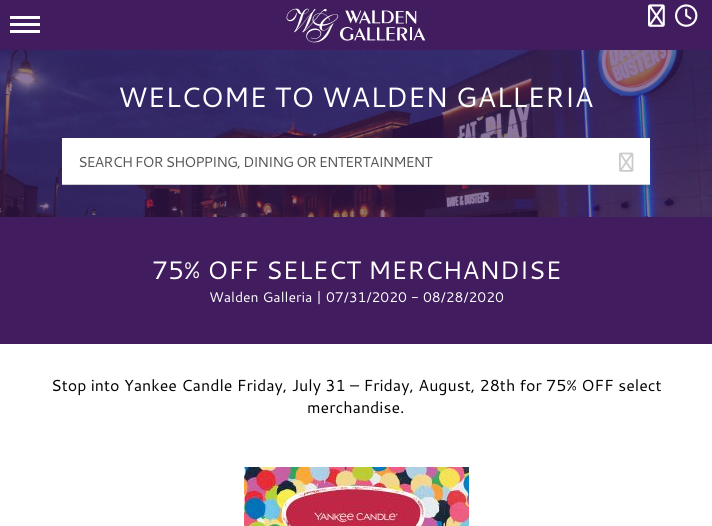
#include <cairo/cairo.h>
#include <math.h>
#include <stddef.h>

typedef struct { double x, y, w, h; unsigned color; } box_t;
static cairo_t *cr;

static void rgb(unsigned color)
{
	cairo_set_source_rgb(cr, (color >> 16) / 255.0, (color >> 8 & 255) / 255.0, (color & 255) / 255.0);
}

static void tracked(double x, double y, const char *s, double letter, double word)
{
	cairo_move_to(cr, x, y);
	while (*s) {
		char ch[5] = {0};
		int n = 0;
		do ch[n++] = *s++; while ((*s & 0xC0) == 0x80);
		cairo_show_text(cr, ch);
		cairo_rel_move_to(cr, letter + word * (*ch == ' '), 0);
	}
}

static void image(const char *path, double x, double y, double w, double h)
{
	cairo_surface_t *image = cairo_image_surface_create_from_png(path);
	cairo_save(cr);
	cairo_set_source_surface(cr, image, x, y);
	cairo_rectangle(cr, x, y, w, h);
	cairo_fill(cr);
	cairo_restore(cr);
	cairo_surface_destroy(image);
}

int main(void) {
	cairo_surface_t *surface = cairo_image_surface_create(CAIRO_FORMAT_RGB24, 712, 526);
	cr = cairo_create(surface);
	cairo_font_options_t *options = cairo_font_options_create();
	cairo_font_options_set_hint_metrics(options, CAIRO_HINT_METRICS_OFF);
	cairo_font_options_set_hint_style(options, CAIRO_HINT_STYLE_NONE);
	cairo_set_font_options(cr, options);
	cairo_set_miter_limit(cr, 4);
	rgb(0xffffff);
	cairo_paint(cr);
	image("img/1.png", 0, 50, 712, 167);
	{
		static const box_t items[] = {
			{0, 0, 712, 50, 0x411c5e},
			{10, 23, 30, 3, 0xffffff},
			{10, 16, 30, 3, 0xffffff},
			{10, 30, 30, 3, 0xffffff},
		};
		for (size_t i = 0; i < sizeof items / sizeof *items; i++) {
			rgb(items[i].color);
			cairo_rectangle(cr, items[i].x, items[i].y, items[i].w, items[i].h);
			cairo_fill(cr);
		}
	}
	image("img/2.png", 286, 8, 140, 35);
	image("img/3.png", 648, 4, 17, 23);
	image("img/4.png", 675, 4, 23, 23);
	cairo_rectangle(cr, 62, 138, 588, 46);
	cairo_fill(cr);
	rgb(0xcccccc);
	cairo_rectangle(cr, 62, 184, 588, 1);
	cairo_fill(cr);
	image("img/5.png", 619, 152, 15, 20);
	rgb(0x411c5e);
	cairo_rectangle(cr, 0, 217, 712, 127);
	cairo_fill(cr);
	image("img/6.png", 244, 467, 225, 59);
	cairo_select_font_face(cr, "Cantarell", CAIRO_FONT_SLANT_NORMAL, CAIRO_FONT_WEIGHT_NORMAL);
	cairo_set_font_size(cr, 28);
	rgb(0xffffff);
	cairo_move_to(cr, 118, 107);
	cairo_show_text(cr, "WELCOME TO WALDEN GALLERIA");
	cairo_set_font_size(cr, 14.4);
	rgb(0x555555);
	tracked(78, 167, "SEARCH FOR SHOPPING, DINING OR ENTERTAINMENT", -1, 0);
	cairo_set_font_size(cr, 25.25);
	rgb(0xffffff);
	cairo_move_to(cr, 152, 279);
	cairo_show_text(cr, "75% OFF SELECT MERCHANDISE");
	cairo_set_font_size(cr, 14);
	cairo_move_to(cr, 209, 302);
	cairo_show_text(cr, "Walden Galleria | 07/31/2020 - 08/28/2020");
	cairo_set_font_size(cr, 16);
	rgb(0x000000);
	cairo_move_to(cr, 51, 391);
	cairo_show_text(cr, "Stop into Yankee Candle Friday, July 31 – Friday, August, 28th for 75% OFF select");
	cairo_move_to(cr, 307, 413);
	cairo_show_text(cr, "merchandise.");
	cairo_surface_write_to_png(surface, "page.png");
	cairo_font_options_destroy(options);
	cairo_destroy(cr);
	cairo_surface_destroy(surface);
	return 0;
}
